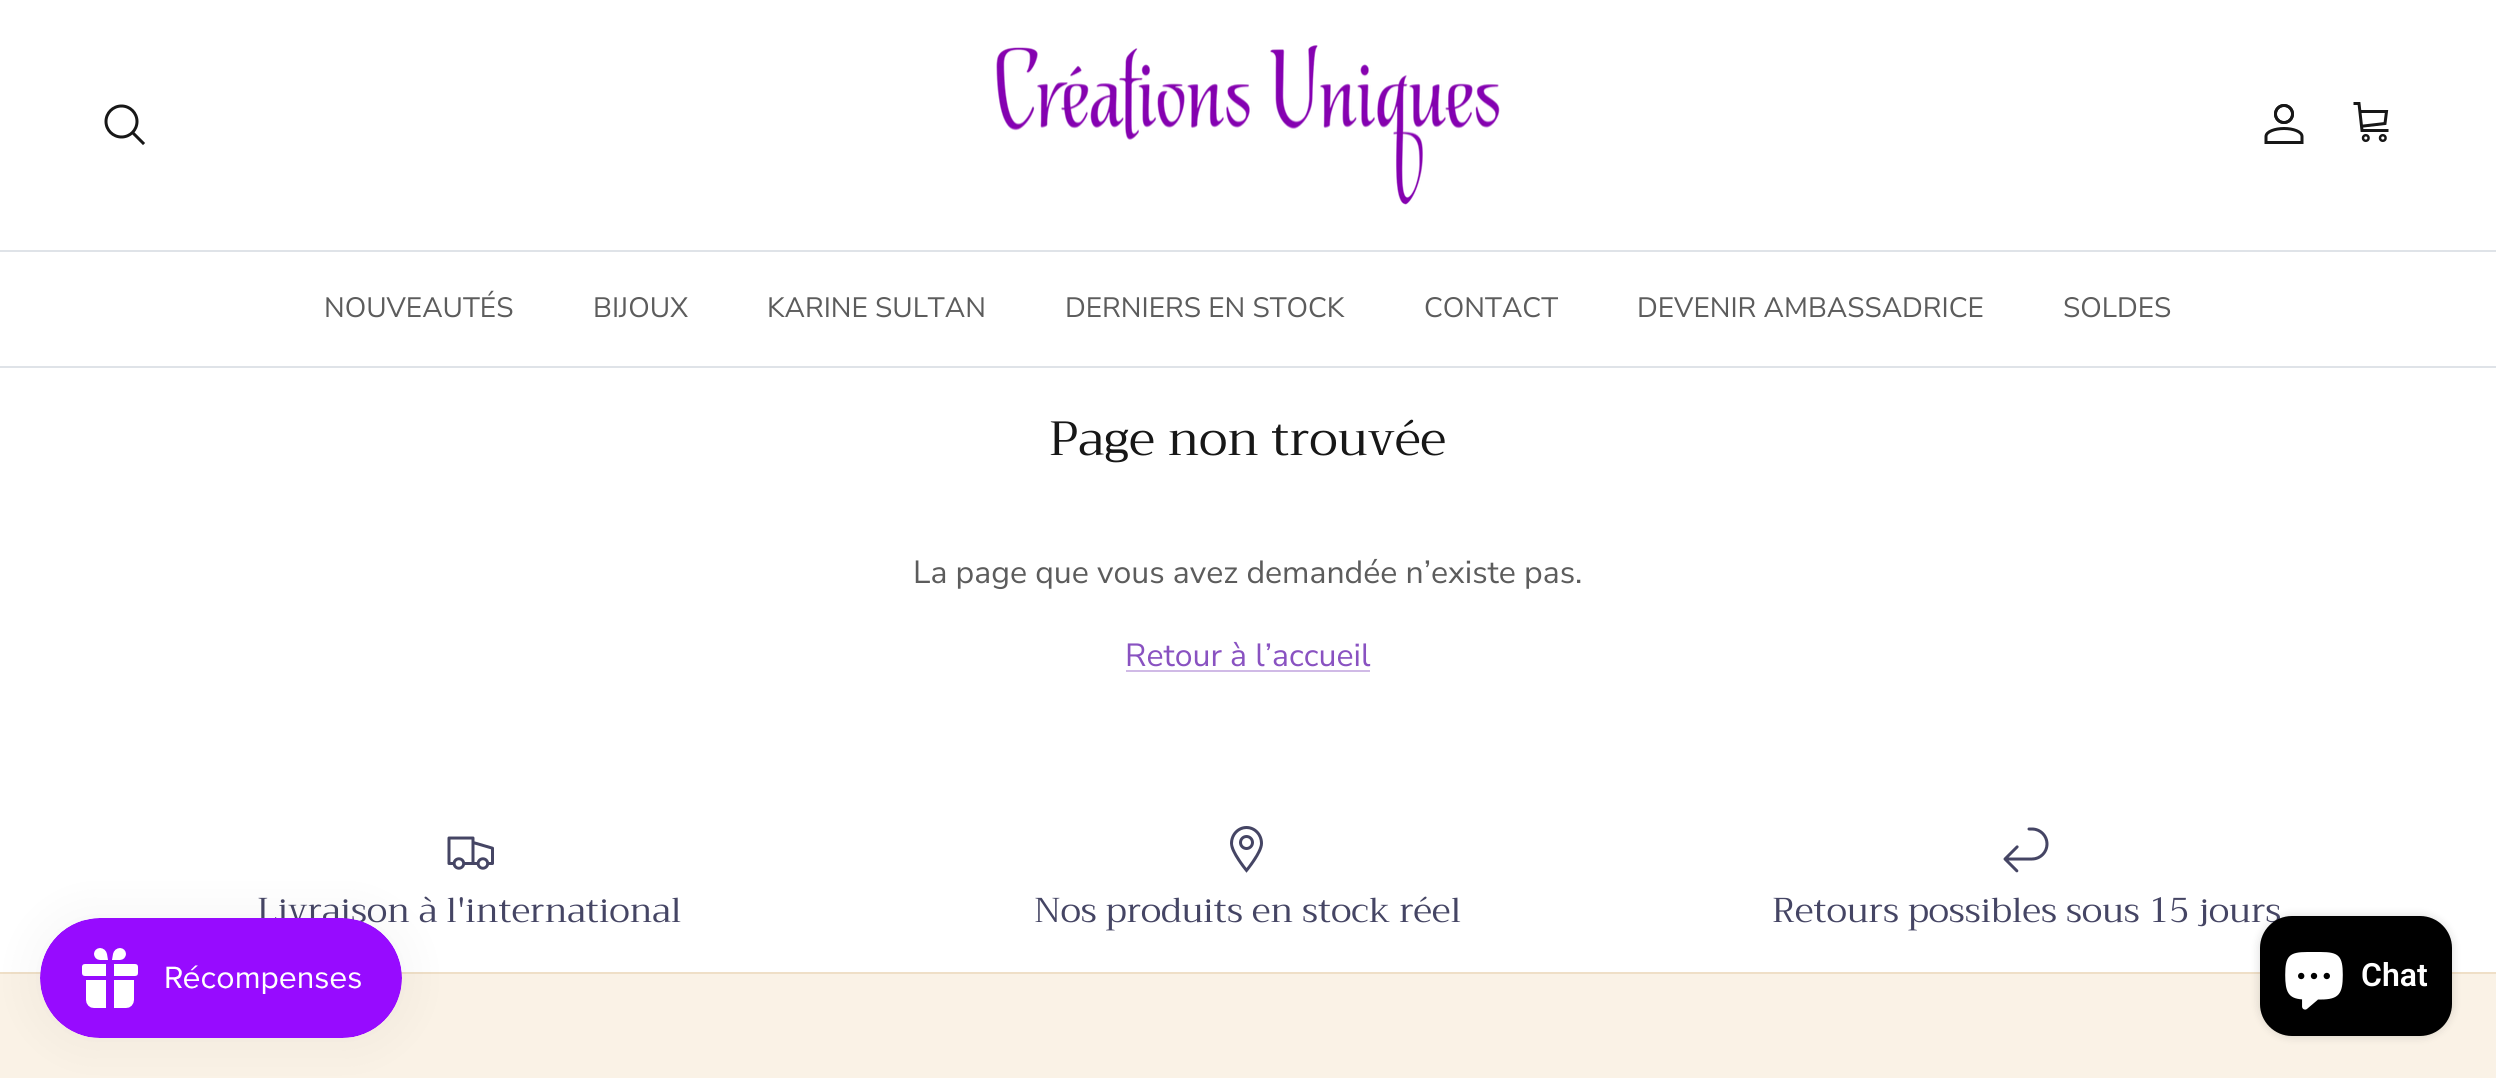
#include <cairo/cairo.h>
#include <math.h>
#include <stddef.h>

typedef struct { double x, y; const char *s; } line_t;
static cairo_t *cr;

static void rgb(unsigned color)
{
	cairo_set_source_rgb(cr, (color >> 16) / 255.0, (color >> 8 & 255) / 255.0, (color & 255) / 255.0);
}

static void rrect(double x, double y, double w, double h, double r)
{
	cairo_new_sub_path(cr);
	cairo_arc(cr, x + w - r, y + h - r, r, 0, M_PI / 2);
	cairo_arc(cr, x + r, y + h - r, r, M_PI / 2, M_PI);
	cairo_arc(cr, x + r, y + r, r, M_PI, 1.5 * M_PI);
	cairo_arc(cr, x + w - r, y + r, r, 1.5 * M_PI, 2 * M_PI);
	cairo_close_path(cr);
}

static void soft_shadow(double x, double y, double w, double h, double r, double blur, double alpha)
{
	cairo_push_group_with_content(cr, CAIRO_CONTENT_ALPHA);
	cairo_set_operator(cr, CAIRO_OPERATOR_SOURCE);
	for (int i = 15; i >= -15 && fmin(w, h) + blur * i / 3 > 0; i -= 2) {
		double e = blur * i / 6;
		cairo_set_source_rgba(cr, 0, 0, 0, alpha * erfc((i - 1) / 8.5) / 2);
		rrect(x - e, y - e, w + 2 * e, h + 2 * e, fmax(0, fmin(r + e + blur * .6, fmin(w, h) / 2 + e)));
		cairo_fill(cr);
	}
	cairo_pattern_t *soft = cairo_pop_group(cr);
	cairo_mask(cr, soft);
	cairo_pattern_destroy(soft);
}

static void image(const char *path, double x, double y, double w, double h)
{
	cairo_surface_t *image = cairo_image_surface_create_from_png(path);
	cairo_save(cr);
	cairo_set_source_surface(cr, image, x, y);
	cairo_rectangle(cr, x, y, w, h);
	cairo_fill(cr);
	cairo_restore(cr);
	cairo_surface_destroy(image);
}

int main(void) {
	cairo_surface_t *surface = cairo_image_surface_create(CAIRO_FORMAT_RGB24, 2496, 1078);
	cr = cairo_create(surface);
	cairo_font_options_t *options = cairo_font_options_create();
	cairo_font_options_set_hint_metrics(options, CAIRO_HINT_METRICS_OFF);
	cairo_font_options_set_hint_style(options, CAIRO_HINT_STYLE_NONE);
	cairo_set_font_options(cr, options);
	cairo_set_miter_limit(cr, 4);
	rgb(0xffffff);
	cairo_paint(cr);
	rgb(0xdfe3e8);
	cairo_rectangle(cr, 0, 250, 2496, 2);
	cairo_fill(cr);
	cairo_arc(cr, 121.5, 121.5, 15.5, 0, 2 * M_PI);
	rgb(0x171717);
	cairo_set_line_width(cr, 3);
	cairo_stroke(cr);
	cairo_new_path(cr);
	cairo_move_to(cr, 134, 134);
	cairo_line_to(cr, 143, 143);
	cairo_set_line_cap(cr, CAIRO_LINE_CAP_SQUARE);
	cairo_stroke(cr);
	image("img/1.png", 996, 45, 504, 160);
	image("img/2.png", 2264, 104, 40, 40);
	cairo_new_path(cr);
	cairo_move_to(cr, 2355, 103.5);
	cairo_line_to(cr, 2359, 103.5);
	cairo_line_to(cr, 2362, 130.5);
	cairo_line_to(cr, 2387, 130.5);
	cairo_move_to(cr, 2360.5, 111.5);
	cairo_line_to(cr, 2386.5, 111.5);
	cairo_line_to(cr, 2385, 123.5);
	cairo_line_to(cr, 2363.5, 126);
	cairo_stroke(cr);
	cairo_arc(cr, 2365.8, 138, 2.8, 0, 2 * M_PI);
	cairo_set_line_width(cr, 2.5);
	cairo_set_line_cap(cr, CAIRO_LINE_CAP_BUTT);
	cairo_stroke(cr);
	cairo_arc(cr, 2382.8, 138, 2.8, 0, 2 * M_PI);
	cairo_stroke(cr);
	rgb(0xdfe3e8);
	cairo_rectangle(cr, 0, 366, 2496, 2);
	cairo_fill(cr);
	rgb(0xd0bae6);
	cairo_rectangle(cr, 1126, 670, 244, 2);
	cairo_fill(cr);
	image("img/4.png", 447, 836, 47, 34);
	rgb(0xfaf2e6);
	cairo_rectangle(cr, 0, 974, 2496, 104);
	cairo_fill(cr);
	rgb(0xefdfc7);
	cairo_rectangle(cr, 0, 972, 2496, 2);
	cairo_fill(cr);
	rgb(0x000000);
	soft_shadow(40, 918, 362, 120, 60, 25, 0.05);
	image("img/5.png", 1230, 826, 33, 47);
	image("img/6.png", 2003, 827, 46, 46);
	soft_shadow(2260, 916, 192, 120, 32, 5, 0.15);
	cairo_select_font_face(cr, "Nunito Sans", CAIRO_FONT_SLANT_NORMAL, CAIRO_FONT_WEIGHT_NORMAL);
	cairo_set_font_size(cr, 28);
	rgb(0x5c5c5c);
	{
		static const line_t items[] = {
			{324, 317, "NOUVEAUTÉS"},
			{593, 317, "BIJOUX"},
			{767, 317, "KARINE SULTAN"},
			{1065, 317, "DERNIERS EN STOCK"},
			{1424, 317, "CONTACT"},
			{1637, 317, "DEVENIR AMBASSADRICE"},
			{2063, 317, "SOLDES"},
		};
		for (size_t i = 0; i < sizeof items / sizeof *items; i++) {
			cairo_move_to(cr, items[i].x, items[i].y);
			cairo_show_text(cr, items[i].s);
		}
	}
	cairo_select_font_face(cr, "Trirong", CAIRO_FONT_SLANT_NORMAL, CAIRO_FONT_WEIGHT_NORMAL);
	cairo_set_font_size(cr, 48);
	rgb(0x171717);
	cairo_move_to(cr, 1049, 455);
	cairo_show_text(cr, "Page non trouvée");
	cairo_select_font_face(cr, "Nunito Sans", CAIRO_FONT_SLANT_NORMAL, CAIRO_FONT_WEIGHT_NORMAL);
	cairo_set_font_size(cr, 32);
	rgb(0x5c5c5c);
	cairo_move_to(cr, 913, 583);
	cairo_show_text(cr, "La page que vous avez demandée n’existe pas.");
	rgb(0x8952c1);
	cairo_move_to(cr, 1125, 666);
	cairo_show_text(cr, "Retour à l’accueil");
	cairo_select_font_face(cr, "Trirong", CAIRO_FONT_SLANT_NORMAL, CAIRO_FONT_WEIGHT_NORMAL);
	cairo_set_font_size(cr, 34.5);
	rgb(0x454564);
	cairo_move_to(cr, 257, 922);
	cairo_show_text(cr, "Livraison à l'international");
	image("img/3.png", 40, 918, 362, 120);
	cairo_move_to(cr, 1034, 922);
	cairo_show_text(cr, "Nos produits en stock réel");
	cairo_move_to(cr, 1772, 922);
	cairo_show_text(cr, "Retours possibles sous 15 jours");
	rgb(0x000000);
	rrect(2260, 916, 192, 120, 32);
	cairo_fill(cr);
	image("img/7.png", 2285, 952, 58, 58);
	cairo_select_font_face(cr, "Roboto SemiBold", CAIRO_FONT_SLANT_NORMAL, CAIRO_FONT_WEIGHT_NORMAL);
	cairo_set_font_size(cr, 32);
	rgb(0xffffff);
	cairo_move_to(cr, 2361, 986);
	cairo_show_text(cr, "Chat");
	cairo_surface_write_to_png(surface, "page.png");
	cairo_font_options_destroy(options);
	cairo_destroy(cr);
	cairo_surface_destroy(surface);
	return 0;
}
